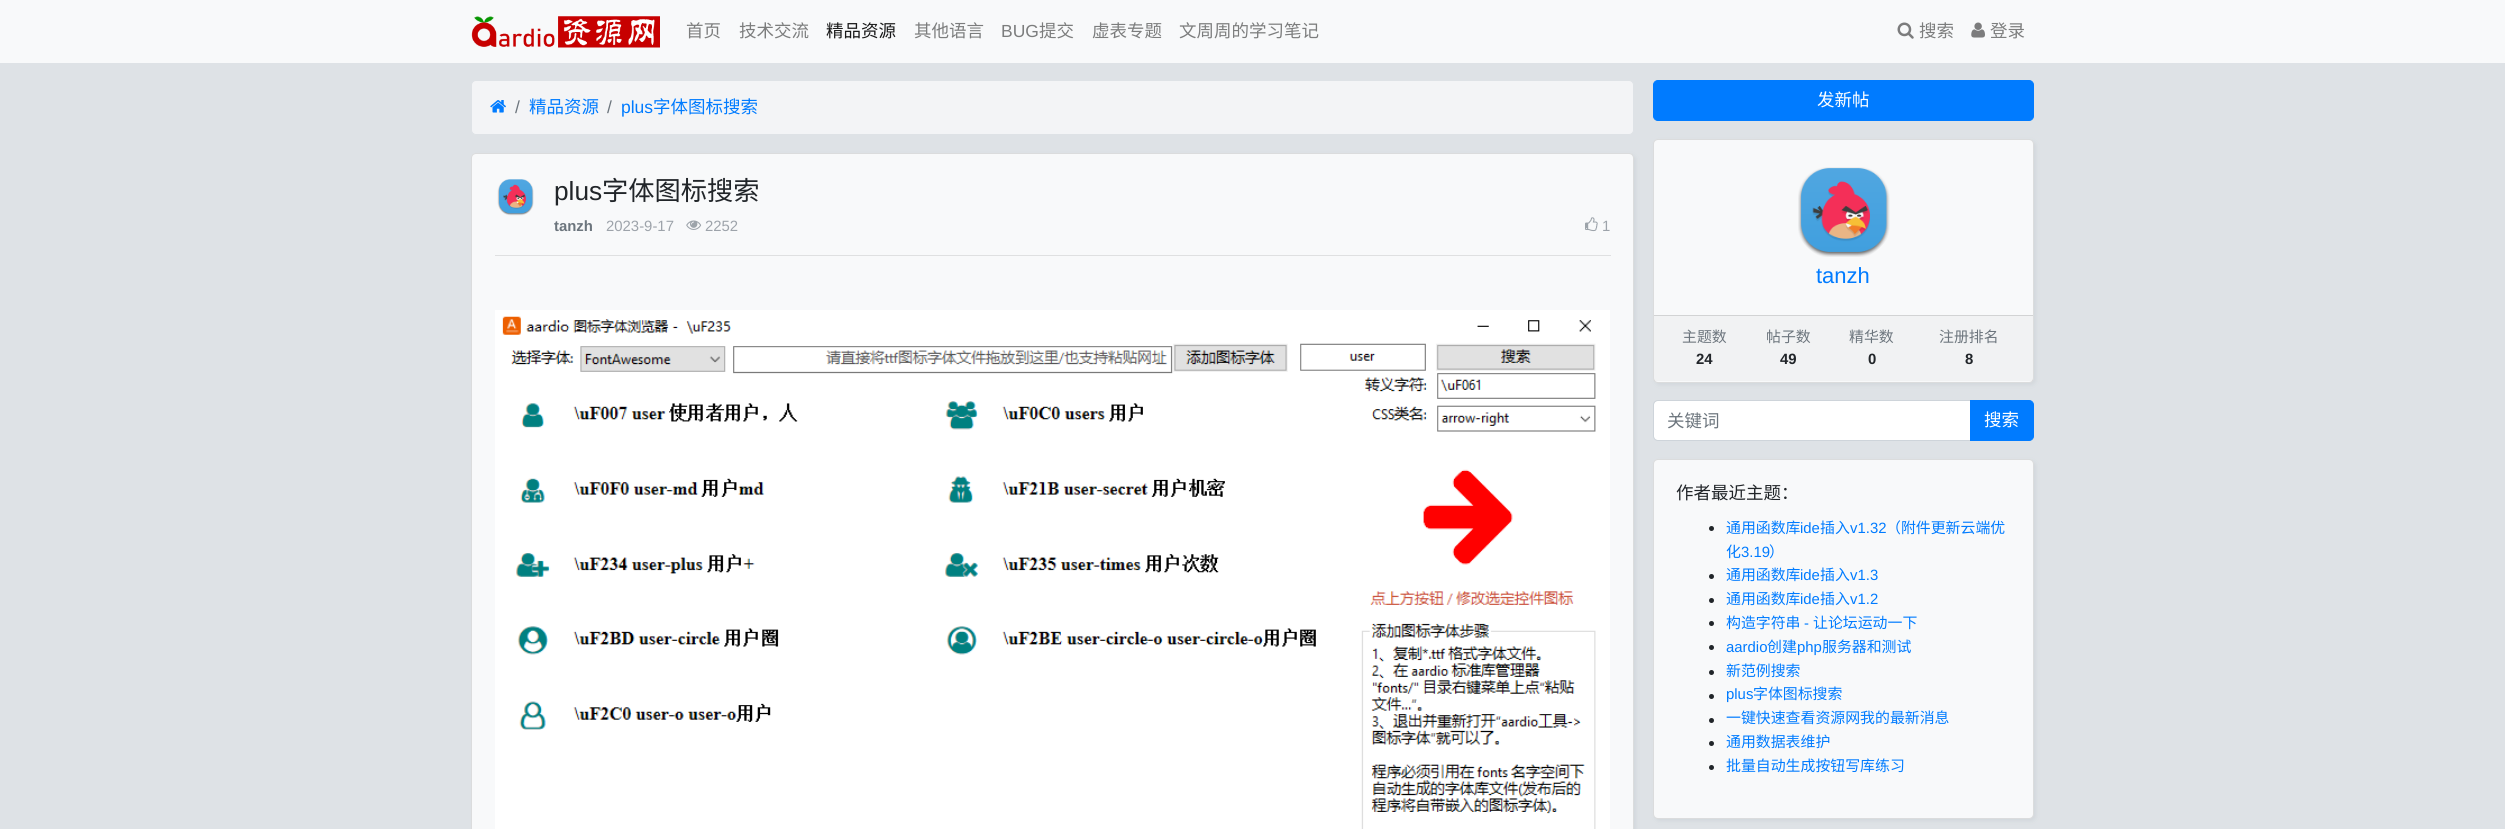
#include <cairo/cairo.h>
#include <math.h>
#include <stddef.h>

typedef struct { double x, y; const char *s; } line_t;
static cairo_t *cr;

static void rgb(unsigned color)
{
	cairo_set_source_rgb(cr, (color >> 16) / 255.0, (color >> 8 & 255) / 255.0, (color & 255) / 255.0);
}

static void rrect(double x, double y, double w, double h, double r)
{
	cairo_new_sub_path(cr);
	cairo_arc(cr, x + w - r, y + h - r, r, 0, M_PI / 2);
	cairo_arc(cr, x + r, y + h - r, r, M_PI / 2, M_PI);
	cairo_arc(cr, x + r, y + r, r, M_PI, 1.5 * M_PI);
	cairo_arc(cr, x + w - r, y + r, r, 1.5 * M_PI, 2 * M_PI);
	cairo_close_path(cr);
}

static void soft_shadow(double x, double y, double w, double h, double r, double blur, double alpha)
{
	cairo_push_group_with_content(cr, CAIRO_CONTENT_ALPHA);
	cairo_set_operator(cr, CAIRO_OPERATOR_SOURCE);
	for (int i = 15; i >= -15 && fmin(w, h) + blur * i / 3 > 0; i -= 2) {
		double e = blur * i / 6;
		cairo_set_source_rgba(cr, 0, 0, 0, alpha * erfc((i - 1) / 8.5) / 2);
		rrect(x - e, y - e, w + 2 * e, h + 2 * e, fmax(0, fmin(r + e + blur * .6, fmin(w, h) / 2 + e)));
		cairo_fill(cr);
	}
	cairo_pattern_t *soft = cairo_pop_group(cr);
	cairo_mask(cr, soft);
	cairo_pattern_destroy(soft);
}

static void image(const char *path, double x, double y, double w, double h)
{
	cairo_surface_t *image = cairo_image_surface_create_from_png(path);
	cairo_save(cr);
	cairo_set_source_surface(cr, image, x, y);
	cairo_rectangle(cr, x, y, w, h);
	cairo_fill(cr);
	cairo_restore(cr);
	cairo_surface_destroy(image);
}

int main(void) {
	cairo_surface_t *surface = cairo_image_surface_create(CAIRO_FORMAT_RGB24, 2505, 829);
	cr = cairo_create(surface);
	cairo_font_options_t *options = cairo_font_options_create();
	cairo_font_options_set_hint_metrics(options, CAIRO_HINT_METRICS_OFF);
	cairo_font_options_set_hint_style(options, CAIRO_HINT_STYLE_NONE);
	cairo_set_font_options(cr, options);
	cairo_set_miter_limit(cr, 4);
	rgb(0xdee2e6);
	cairo_paint(cr);
	rgb(0xf8f9fa);
	cairo_rectangle(cr, 0, 0, 2505, 63);
	cairo_fill(cr);
	image("img/1.png", 471, 16, 189, 32);
	image("img/2.png", 1897, 22, 17, 17);
	image("img/3.png", 1971, 22, 14, 16);
	rgb(0xf3f4f6);
	rrect(471.5, 80.5, 1162, 54, 4.5);
	cairo_fill_preserve(cr);
	rgb(0xdee2e6);
	cairo_set_line_width(cr, 1);
	cairo_stroke(cr);
	image("img/4.png", 490, 100, 16, 13);
	rgb(0xadb5bd);
	soft_shadow(474, 155, 1162, 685, 5, 2, 0.25);
	rgb(0xf8f9fa);
	rrect(471, 153, 1163, 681, 5);
	cairo_fill(cr);
	rrect(471.5, 153.5, 1162, 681, 4.5);
	cairo_set_source_rgba(cr, 0, 0, 0, 0.12);
	cairo_stroke(cr);
	image("img/5.png", 497, 179, 37, 37);
	image("img/6.png", 686, 220, 16, 10);
	image("img/7.png", 1585, 217, 13, 15);
	rgb(0xdfe0e1);
	cairo_rectangle(cr, 495, 255, 1116, 1);
	cairo_fill(cr);
	image("img/8.png", 495, 310, 1115, 519);
	rgb(0x007bff);
	rrect(1653.5, 80.5, 380, 40, 4.5);
	cairo_fill_preserve(cr);
	cairo_stroke(cr);
	rgb(0xadb5bd);
	soft_shadow(1655, 141, 381, 244, 5, 2, 0.25);
	rgb(0xf8f9fa);
	rrect(1653, 139, 381, 244, 5);
	cairo_fill(cr);
	rrect(1653.5, 139.5, 380, 243, 4.5);
	cairo_set_source_rgba(cr, 0, 0, 0, 0.12);
	cairo_stroke(cr);
	image("img/9.png", 1798, 167, 92, 90);
	cairo_set_source_rgba(cr, 0, 0, 0, 0.03);
	cairo_rectangle(cr, 1654, 316, 379, 65);
	cairo_fill(cr);
	rgb(0xd2d3d4);
	cairo_rectangle(cr, 1654, 315, 379, 1);
	cairo_fill(cr);
	rgb(0xffffff);
	cairo_new_path(cr);
	cairo_move_to(cr, 1657, 401);
	cairo_line_to(cr, 1970, 401);
	cairo_line_to(cr, 1970, 440);
	cairo_line_to(cr, 1657, 440);
	cairo_curve_to(cr, 1655.5, 440, 1654, 438.5, 1654, 437);
	cairo_line_to(cr, 1654, 404);
	cairo_curve_to(cr, 1654, 402.5, 1655.5, 401, 1657, 401);
	cairo_close_path(cr);
	cairo_fill(cr);
	cairo_new_path(cr);
	cairo_move_to(cr, 1658, 400.5);
	cairo_line_to(cr, 1970.5, 400.5);
	cairo_line_to(cr, 1970.5, 440.5);
	cairo_line_to(cr, 1658, 440.5);
	cairo_curve_to(cr, 1655.5, 440.5, 1653.5, 438.5, 1653.5, 436);
	cairo_line_to(cr, 1653.5, 405);
	cairo_curve_to(cr, 1653.5, 402.5, 1655.5, 400.5, 1658, 400.5);
	cairo_close_path(cr);
	rgb(0xced4da);
	cairo_stroke(cr);
	rgb(0x007bff);
	cairo_new_path(cr);
	cairo_move_to(cr, 1970.5, 400.5);
	cairo_line_to(cr, 2029, 400.5);
	cairo_curve_to(cr, 2031.5, 400.5, 2033.5, 402.5, 2033.5, 405);
	cairo_line_to(cr, 2033.5, 436);
	cairo_curve_to(cr, 2033.5, 438.5, 2031.5, 440.5, 2029, 440.5);
	cairo_line_to(cr, 1970.5, 440.5);
	cairo_close_path(cr);
	cairo_fill_preserve(cr);
	cairo_stroke(cr);
	rgb(0xadb5bd);
	soft_shadow(1655, 461, 381, 360, 5, 2, 0.25);
	rgb(0xf8f9fa);
	rrect(1653, 459, 381, 360, 5);
	cairo_fill(cr);
	rrect(1653.5, 459.5, 380, 359, 4.5);
	cairo_set_source_rgba(cr, 0, 0, 0, 0.12);
	cairo_stroke(cr);
	rgb(0x212529);
	cairo_arc(cr, 1711.5, 528.5, 2.5, 0, 2 * M_PI);
	cairo_fill(cr);
	cairo_arc(cr, 1711.5, 576.5, 2.5, 0, 2 * M_PI);
	cairo_fill(cr);
	cairo_arc(cr, 1711.5, 600.5, 2.5, 0, 2 * M_PI);
	cairo_fill(cr);
	cairo_arc(cr, 1711.5, 623.5, 2.5, 0, 2 * M_PI);
	cairo_fill(cr);
	cairo_arc(cr, 1711.5, 647.5, 2.5, 0, 2 * M_PI);
	cairo_fill(cr);
	cairo_arc(cr, 1711.5, 672.5, 2.5, 0, 2 * M_PI);
	cairo_fill(cr);
	cairo_arc(cr, 1711.5, 696.5, 2.5, 0, 2 * M_PI);
	cairo_fill(cr);
	cairo_arc(cr, 1711.5, 720.5, 2.5, 0, 2 * M_PI);
	cairo_fill(cr);
	cairo_arc(cr, 1711.5, 743.5, 2.5, 0, 2 * M_PI);
	cairo_fill(cr);
	cairo_arc(cr, 1711.5, 767.5, 2.5, 0, 2 * M_PI);
	cairo_fill(cr);
	cairo_select_font_face(cr, "Noto Sans CJK SC", CAIRO_FONT_SLANT_NORMAL, CAIRO_FONT_WEIGHT_NORMAL);
	cairo_set_font_size(cr, 17.5);
	rgb(0x7c7d7d);
	cairo_move_to(cr, 686, 37);
	cairo_show_text(cr, "首页");
	cairo_move_to(cr, 739, 37);
	cairo_show_text(cr, "技术交流");
	rgb(0x191919);
	cairo_move_to(cr, 826, 37);
	cairo_show_text(cr, "精品资源");
	rgb(0x7c7d7d);
	cairo_move_to(cr, 914, 37);
	cairo_show_text(cr, "其他语言");
	cairo_select_font_face(cr, "Liberation Sans", CAIRO_FONT_SLANT_NORMAL, CAIRO_FONT_WEIGHT_NORMAL);
	cairo_move_to(cr, 1001, 37);
	cairo_show_text(cr, "BUG");
	cairo_select_font_face(cr, "Noto Sans CJK SC", CAIRO_FONT_SLANT_NORMAL, CAIRO_FONT_WEIGHT_NORMAL);
	{
		static const line_t items[] = {
			{1039, 37, "提交"},
			{1092, 37, "虚表专题"},
			{1179, 37, "文周周的学习笔记"},
			{1919, 37, "搜索"},
			{1990, 37, "登录"},
		};
		for (size_t i = 0; i < sizeof items / sizeof *items; i++) {
			cairo_move_to(cr, items[i].x, items[i].y);
			cairo_show_text(cr, items[i].s);
		}
	}
	cairo_select_font_face(cr, "Liberation Sans", CAIRO_FONT_SLANT_NORMAL, CAIRO_FONT_WEIGHT_NORMAL);
	rgb(0x6c757d);
	cairo_move_to(cr, 515, 113);
	cairo_show_text(cr, "/");
	cairo_select_font_face(cr, "Noto Sans CJK SC", CAIRO_FONT_SLANT_NORMAL, CAIRO_FONT_WEIGHT_NORMAL);
	rgb(0x007bff);
	cairo_move_to(cr, 529, 113);
	cairo_show_text(cr, "精品资源");
	cairo_select_font_face(cr, "Liberation Sans", CAIRO_FONT_SLANT_NORMAL, CAIRO_FONT_WEIGHT_NORMAL);
	rgb(0x6c757d);
	cairo_move_to(cr, 607, 113);
	cairo_show_text(cr, "/");
	rgb(0x007bff);
	cairo_move_to(cr, 621, 113);
	cairo_show_text(cr, "plus");
	cairo_select_font_face(cr, "Noto Sans CJK SC", CAIRO_FONT_SLANT_NORMAL, CAIRO_FONT_WEIGHT_NORMAL);
	cairo_move_to(cr, 653, 113);
	cairo_show_text(cr, "字体图标搜索");
	cairo_select_font_face(cr, "Liberation Sans", CAIRO_FONT_SLANT_NORMAL, CAIRO_FONT_WEIGHT_NORMAL);
	cairo_set_font_size(cr, 26.25);
	rgb(0x212529);
	cairo_move_to(cr, 554, 200);
	cairo_show_text(cr, "plus");
	cairo_select_font_face(cr, "Noto Sans CJK SC", CAIRO_FONT_SLANT_NORMAL, CAIRO_FONT_WEIGHT_NORMAL);
	cairo_move_to(cr, 602, 200);
	cairo_show_text(cr, "字体图标搜索");
	cairo_select_font_face(cr, "Liberation Sans", CAIRO_FONT_SLANT_NORMAL, CAIRO_FONT_WEIGHT_BOLD);
	cairo_set_font_size(cr, 14.9);
	rgb(0x6c757d);
	cairo_move_to(cr, 554, 231);
	cairo_show_text(cr, "tanzh");
	cairo_select_font_face(cr, "Liberation Sans", CAIRO_FONT_SLANT_NORMAL, CAIRO_FONT_WEIGHT_NORMAL);
	rgb(0x9da3aa);
	{
		static const line_t items[] = {
			{606, 231, "2023-9-17"},
			{705, 231, "2252"},
			{1602, 231, "1"},
		};
		for (size_t i = 0; i < sizeof items / sizeof *items; i++) {
			cairo_move_to(cr, items[i].x, items[i].y);
			cairo_show_text(cr, items[i].s);
		}
	}
	cairo_select_font_face(cr, "Noto Sans CJK SC", CAIRO_FONT_SLANT_NORMAL, CAIRO_FONT_WEIGHT_NORMAL);
	cairo_set_font_size(cr, 17.5);
	rgb(0xffffff);
	cairo_move_to(cr, 1817, 106);
	cairo_show_text(cr, "发新帖");
	cairo_select_font_face(cr, "Liberation Sans", CAIRO_FONT_SLANT_NORMAL, CAIRO_FONT_WEIGHT_NORMAL);
	cairo_set_font_size(cr, 22);
	rgb(0x007bff);
	cairo_move_to(cr, 1816, 283);
	cairo_show_text(cr, "tanzh");
	cairo_select_font_face(cr, "Noto Sans CJK SC", CAIRO_FONT_SLANT_NORMAL, CAIRO_FONT_WEIGHT_NORMAL);
	cairo_set_font_size(cr, 14.9);
	rgb(0x6c757d);
	cairo_move_to(cr, 1682, 342);
	cairo_show_text(cr, "主题数");
	cairo_select_font_face(cr, "Liberation Sans", CAIRO_FONT_SLANT_NORMAL, CAIRO_FONT_WEIGHT_BOLD);
	rgb(0x212529);
	cairo_move_to(cr, 1696, 364);
	cairo_show_text(cr, "24");
	cairo_select_font_face(cr, "Noto Sans CJK SC", CAIRO_FONT_SLANT_NORMAL, CAIRO_FONT_WEIGHT_NORMAL);
	rgb(0x6c757d);
	cairo_move_to(cr, 1766, 342);
	cairo_show_text(cr, "帖子数");
	cairo_select_font_face(cr, "Liberation Sans", CAIRO_FONT_SLANT_NORMAL, CAIRO_FONT_WEIGHT_BOLD);
	rgb(0x212529);
	cairo_move_to(cr, 1780, 364);
	cairo_show_text(cr, "49");
	cairo_select_font_face(cr, "Noto Sans CJK SC", CAIRO_FONT_SLANT_NORMAL, CAIRO_FONT_WEIGHT_NORMAL);
	rgb(0x6c757d);
	cairo_move_to(cr, 1849, 342);
	cairo_show_text(cr, "精华数");
	cairo_select_font_face(cr, "Liberation Sans", CAIRO_FONT_SLANT_NORMAL, CAIRO_FONT_WEIGHT_BOLD);
	rgb(0x212529);
	cairo_move_to(cr, 1868, 364);
	cairo_show_text(cr, "0");
	cairo_select_font_face(cr, "Noto Sans CJK SC", CAIRO_FONT_SLANT_NORMAL, CAIRO_FONT_WEIGHT_NORMAL);
	rgb(0x6c757d);
	cairo_move_to(cr, 1939, 342);
	cairo_show_text(cr, "注册排名");
	cairo_select_font_face(cr, "Liberation Sans", CAIRO_FONT_SLANT_NORMAL, CAIRO_FONT_WEIGHT_BOLD);
	rgb(0x212529);
	cairo_move_to(cr, 1965, 364);
	cairo_show_text(cr, "8");
	cairo_select_font_face(cr, "Noto Sans CJK SC", CAIRO_FONT_SLANT_NORMAL, CAIRO_FONT_WEIGHT_NORMAL);
	cairo_set_font_size(cr, 17.5);
	rgb(0x6c757d);
	cairo_move_to(cr, 1667, 427);
	cairo_show_text(cr, "关键词");
	rgb(0xffffff);
	cairo_move_to(cr, 1984, 426);
	cairo_show_text(cr, "搜索");
	rgb(0x212529);
	cairo_move_to(cr, 1676, 499);
	cairo_show_text(cr, "作者最近主题：");
	cairo_set_font_size(cr, 14.9);
	rgb(0x007bff);
	cairo_move_to(cr, 1726, 533);
	cairo_show_text(cr, "通用函数库");
	cairo_select_font_face(cr, "Liberation Sans", CAIRO_FONT_SLANT_NORMAL, CAIRO_FONT_WEIGHT_NORMAL);
	cairo_move_to(cr, 1800, 533);
	cairo_show_text(cr, "ide");
	cairo_select_font_face(cr, "Noto Sans CJK SC", CAIRO_FONT_SLANT_NORMAL, CAIRO_FONT_WEIGHT_NORMAL);
	cairo_move_to(cr, 1820, 533);
	cairo_show_text(cr, "插入");
	cairo_select_font_face(cr, "Liberation Sans", CAIRO_FONT_SLANT_NORMAL, CAIRO_FONT_WEIGHT_NORMAL);
	cairo_move_to(cr, 1850, 533);
	cairo_show_text(cr, "v1.32");
	cairo_select_font_face(cr, "Noto Sans CJK SC", CAIRO_FONT_SLANT_NORMAL, CAIRO_FONT_WEIGHT_NORMAL);
	cairo_move_to(cr, 1886, 533);
	cairo_show_text(cr, "（附件更新云端优");
	cairo_move_to(cr, 1726, 557);
	cairo_show_text(cr, "化");
	cairo_select_font_face(cr, "Liberation Sans", CAIRO_FONT_SLANT_NORMAL, CAIRO_FONT_WEIGHT_NORMAL);
	cairo_move_to(cr, 1741, 557);
	cairo_show_text(cr, "3.19");
	cairo_select_font_face(cr, "Noto Sans CJK SC", CAIRO_FONT_SLANT_NORMAL, CAIRO_FONT_WEIGHT_NORMAL);
	cairo_move_to(cr, 1769, 557);
	cairo_show_text(cr, "）");
	cairo_move_to(cr, 1726, 580);
	cairo_show_text(cr, "通用函数库");
	cairo_select_font_face(cr, "Liberation Sans", CAIRO_FONT_SLANT_NORMAL, CAIRO_FONT_WEIGHT_NORMAL);
	cairo_move_to(cr, 1800, 580);
	cairo_show_text(cr, "ide");
	cairo_select_font_face(cr, "Noto Sans CJK SC", CAIRO_FONT_SLANT_NORMAL, CAIRO_FONT_WEIGHT_NORMAL);
	cairo_move_to(cr, 1820, 580);
	cairo_show_text(cr, "插入");
	cairo_select_font_face(cr, "Liberation Sans", CAIRO_FONT_SLANT_NORMAL, CAIRO_FONT_WEIGHT_NORMAL);
	cairo_move_to(cr, 1850, 580);
	cairo_show_text(cr, "v1.3");
	cairo_select_font_face(cr, "Noto Sans CJK SC", CAIRO_FONT_SLANT_NORMAL, CAIRO_FONT_WEIGHT_NORMAL);
	cairo_move_to(cr, 1726, 604);
	cairo_show_text(cr, "通用函数库");
	cairo_select_font_face(cr, "Liberation Sans", CAIRO_FONT_SLANT_NORMAL, CAIRO_FONT_WEIGHT_NORMAL);
	cairo_move_to(cr, 1800, 604);
	cairo_show_text(cr, "ide");
	cairo_select_font_face(cr, "Noto Sans CJK SC", CAIRO_FONT_SLANT_NORMAL, CAIRO_FONT_WEIGHT_NORMAL);
	cairo_move_to(cr, 1820, 604);
	cairo_show_text(cr, "插入");
	cairo_select_font_face(cr, "Liberation Sans", CAIRO_FONT_SLANT_NORMAL, CAIRO_FONT_WEIGHT_NORMAL);
	cairo_move_to(cr, 1850, 604);
	cairo_show_text(cr, "v1.2");
	cairo_select_font_face(cr, "Noto Sans CJK SC", CAIRO_FONT_SLANT_NORMAL, CAIRO_FONT_WEIGHT_NORMAL);
	cairo_move_to(cr, 1726, 628);
	cairo_show_text(cr, "构造字符串");
	cairo_select_font_face(cr, "Liberation Sans", CAIRO_FONT_SLANT_NORMAL, CAIRO_FONT_WEIGHT_NORMAL);
	cairo_move_to(cr, 1804, 628);
	cairo_show_text(cr, "-");
	cairo_select_font_face(cr, "Noto Sans CJK SC", CAIRO_FONT_SLANT_NORMAL, CAIRO_FONT_WEIGHT_NORMAL);
	cairo_move_to(cr, 1813, 628);
	cairo_show_text(cr, "让论坛运动一下");
	cairo_select_font_face(cr, "Liberation Sans", CAIRO_FONT_SLANT_NORMAL, CAIRO_FONT_WEIGHT_NORMAL);
	cairo_move_to(cr, 1726, 652);
	cairo_show_text(cr, "aardio");
	cairo_select_font_face(cr, "Noto Sans CJK SC", CAIRO_FONT_SLANT_NORMAL, CAIRO_FONT_WEIGHT_NORMAL);
	cairo_move_to(cr, 1767, 652);
	cairo_show_text(cr, "创建");
	cairo_select_font_face(cr, "Liberation Sans", CAIRO_FONT_SLANT_NORMAL, CAIRO_FONT_WEIGHT_NORMAL);
	cairo_move_to(cr, 1797, 652);
	cairo_show_text(cr, "php");
	cairo_select_font_face(cr, "Noto Sans CJK SC", CAIRO_FONT_SLANT_NORMAL, CAIRO_FONT_WEIGHT_NORMAL);
	cairo_move_to(cr, 1822, 652);
	cairo_show_text(cr, "服务器和测试");
	cairo_move_to(cr, 1726, 676);
	cairo_show_text(cr, "新范例搜索");
	cairo_select_font_face(cr, "Liberation Sans", CAIRO_FONT_SLANT_NORMAL, CAIRO_FONT_WEIGHT_NORMAL);
	cairo_move_to(cr, 1726, 699);
	cairo_show_text(cr, "plus");
	cairo_select_font_face(cr, "Noto Sans CJK SC", CAIRO_FONT_SLANT_NORMAL, CAIRO_FONT_WEIGHT_NORMAL);
	{
		static const line_t items[] = {
			{1753, 699, "字体图标搜索"},
			{1726, 723, "一键快速查看资源网我的最新消息"},
			{1726, 747, "通用数据表维护"},
			{1726, 771, "批量自动生成按钮写库练习"},
		};
		for (size_t i = 0; i < sizeof items / sizeof *items; i++) {
			cairo_move_to(cr, items[i].x, items[i].y);
			cairo_show_text(cr, items[i].s);
		}
	}
	cairo_surface_write_to_png(surface, "page.png");
	cairo_font_options_destroy(options);
	cairo_destroy(cr);
	cairo_surface_destroy(surface);
	return 0;
}
